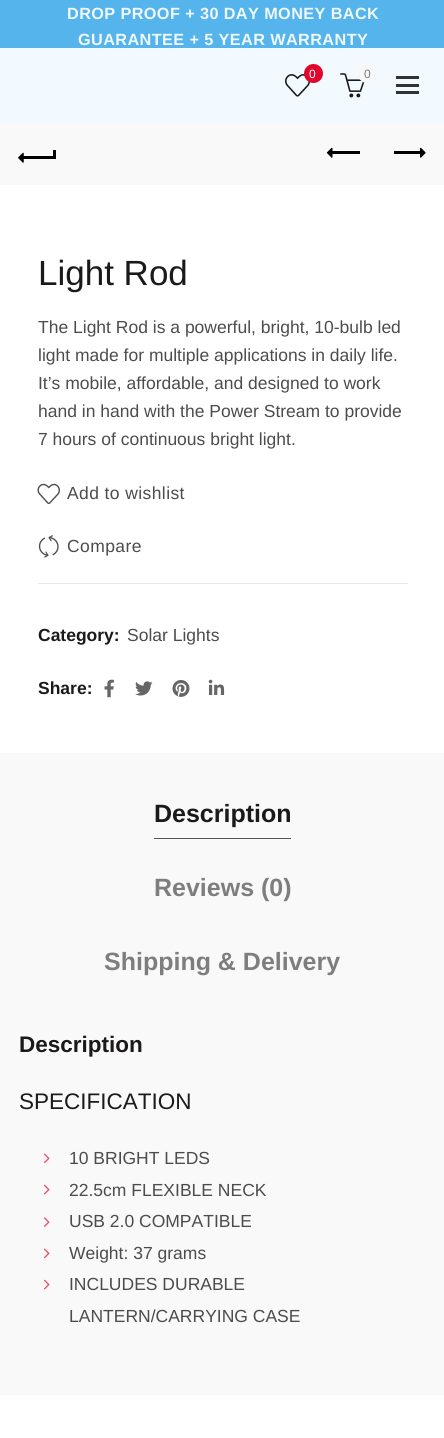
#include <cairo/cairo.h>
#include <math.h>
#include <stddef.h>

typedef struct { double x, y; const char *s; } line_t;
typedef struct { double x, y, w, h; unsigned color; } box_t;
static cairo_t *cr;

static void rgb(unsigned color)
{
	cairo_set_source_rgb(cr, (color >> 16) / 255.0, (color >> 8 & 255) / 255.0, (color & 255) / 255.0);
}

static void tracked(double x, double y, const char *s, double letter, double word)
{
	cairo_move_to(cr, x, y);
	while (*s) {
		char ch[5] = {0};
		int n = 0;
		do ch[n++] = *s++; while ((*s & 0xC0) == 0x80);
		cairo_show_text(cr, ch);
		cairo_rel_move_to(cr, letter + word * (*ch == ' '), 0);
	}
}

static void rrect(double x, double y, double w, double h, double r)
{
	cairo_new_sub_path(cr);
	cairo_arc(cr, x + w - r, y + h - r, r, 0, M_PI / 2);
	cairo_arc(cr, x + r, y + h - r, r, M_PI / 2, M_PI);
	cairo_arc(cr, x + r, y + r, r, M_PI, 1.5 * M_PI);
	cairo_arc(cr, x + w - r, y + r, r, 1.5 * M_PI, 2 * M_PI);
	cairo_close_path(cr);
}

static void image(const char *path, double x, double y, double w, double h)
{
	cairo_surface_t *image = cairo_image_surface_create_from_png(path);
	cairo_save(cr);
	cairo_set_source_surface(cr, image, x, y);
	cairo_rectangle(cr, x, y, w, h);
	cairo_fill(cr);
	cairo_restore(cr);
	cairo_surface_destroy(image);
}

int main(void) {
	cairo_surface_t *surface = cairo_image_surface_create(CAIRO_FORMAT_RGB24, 444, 1438);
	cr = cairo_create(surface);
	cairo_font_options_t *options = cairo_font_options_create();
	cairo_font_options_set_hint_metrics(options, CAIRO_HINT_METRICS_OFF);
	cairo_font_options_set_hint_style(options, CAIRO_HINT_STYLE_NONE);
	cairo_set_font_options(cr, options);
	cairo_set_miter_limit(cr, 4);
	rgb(0xffffff);
	cairo_paint(cr);
	rgb(0x55b4eb);
	cairo_rectangle(cr, 0, 0, 444, 48);
	cairo_fill(cr);
	rgb(0xf2faff);
	cairo_rectangle(cr, 0, 48, 444, 75);
	cairo_fill(cr);
	image("img/1.png", 285, 74, 25, 23);
	rgb(0xe2052b);
	cairo_arc(cr, 313.5, 73.5, 9.5, 0, 2 * M_PI);
	cairo_fill(cr);
	image("img/2.png", 340, 73, 25, 25);
	rgb(0xf7f7f7);
	rrect(358, 64, 18, 19, 9);
	cairo_fill(cr);
	{
		static const box_t items[] = {
			{396, 84, 23, 3, 0x303233},
			{396, 76, 23, 3, 0x303233},
			{396, 91, 23, 3, 0x303233},
			{0, 123, 444, 62, 0xf9f9f9},
			{23, 156, 31, 3, 0x000000},
		};
		for (size_t i = 0; i < sizeof items / sizeof *items; i++) {
			rgb(items[i].color);
			cairo_rectangle(cr, items[i].x, items[i].y, items[i].w, items[i].h);
			cairo_fill(cr);
		}
	}
	image("img/3.png", 18, 152, 6, 11);
	cairo_rectangle(cr, 53, 150, 3, 9);
	cairo_fill(cr);
	cairo_rectangle(cr, 331, 151, 29, 3);
	cairo_fill(cr);
	image("img/4.png", 326, 147, 7, 11);
	cairo_rectangle(cr, 394, 151, 29, 3);
	cairo_fill(cr);
	image("img/5.png", 420, 147, 6, 11);
	image("img/6.png", 37, 483, 23, 21);
	image("img/7.png", 38, 535, 21, 23);
	rgb(0xe8e8e8);
	cairo_rectangle(cr, 38, 583, 370, 1);
	cairo_fill(cr);
	image("img/8.png", 104, 679, 10, 19);
	image("img/9.png", 135, 681, 18, 15);
	image("img/10.png", 172, 680, 18, 17);
	image("img/11.png", 208, 679, 17, 16);
	rgb(0xf9f9f9);
	cairo_rectangle(cr, 0, 753, 444, 642);
	cairo_fill(cr);
	rgb(0x545454);
	cairo_rectangle(cr, 154, 838, 137, 1);
	cairo_fill(cr);
	image("img/12.png", 43, 1153, 7, 11);
	image("img/13.png", 43, 1184, 7, 11);
	image("img/14.png", 43, 1217, 7, 10);
	image("img/12.png", 43, 1248, 7, 11);
	image("img/13.png", 43, 1279, 7, 11);
	cairo_select_font_face(cr, "Liberation Sans", CAIRO_FONT_SLANT_NORMAL, CAIRO_FONT_WEIGHT_BOLD);
	cairo_set_font_size(cr, 16.25);
	rgb(0xeef8fd);
	tracked(67, 19, "DROP PROOF + 30 DAY MONEY BACK", 0.4, 0);
	tracked(78, 45, "GUARANTEE + 5 YEAR WARRANTY", 0.4, 0);
	cairo_select_font_face(cr, "Liberation Sans", CAIRO_FONT_SLANT_NORMAL, CAIRO_FONT_WEIGHT_NORMAL);
	cairo_set_font_size(cr, 12);
	rgb(0xffffff);
	cairo_move_to(cr, 309, 78);
	cairo_show_text(cr, "0");
	rgb(0x7e7e7e);
	cairo_move_to(cr, 364, 78);
	cairo_show_text(cr, "0");
	cairo_set_font_size(cr, 35);
	rgb(0x1b1919);
	cairo_move_to(cr, 38, 285);
	cairo_show_text(cr, "Light Rod");
	cairo_set_font_size(cr, 17.5);
	rgb(0x4c4c4c);
	{
		static const line_t items[] = {
			{38, 333, "The Light Rod is a powerful, bright, 10-bulb led"},
			{38, 361, "light made for multiple applications in daily life."},
			{38, 389, "It’s mobile, affordable, and designed to work"},
			{38, 417, "hand in hand with the Power Stream to provide"},
			{38, 445, "7 hours of continuous bright light."},
		};
		for (size_t i = 0; i < sizeof items / sizeof *items; i++) {
			cairo_move_to(cr, items[i].x, items[i].y);
			cairo_show_text(cr, items[i].s);
		}
	}
	tracked(67, 499, "Add to wishlist", 0.4, 0);
	tracked(67, 552, "Compare", 0.4, 0);
	cairo_select_font_face(cr, "Liberation Sans", CAIRO_FONT_SLANT_NORMAL, CAIRO_FONT_WEIGHT_BOLD);
	rgb(0x1b1919);
	cairo_move_to(cr, 38, 641);
	cairo_show_text(cr, "Category:");
	cairo_select_font_face(cr, "Liberation Sans", CAIRO_FONT_SLANT_NORMAL, CAIRO_FONT_WEIGHT_NORMAL);
	rgb(0x4c4c4c);
	cairo_move_to(cr, 127, 641);
	cairo_show_text(cr, "Solar Lights");
	cairo_select_font_face(cr, "Liberation Sans", CAIRO_FONT_SLANT_NORMAL, CAIRO_FONT_WEIGHT_BOLD);
	rgb(0x1b1919);
	cairo_move_to(cr, 38, 694);
	cairo_show_text(cr, "Share:");
	cairo_set_font_size(cr, 25);
	cairo_move_to(cr, 154, 822);
	cairo_show_text(cr, "Description");
	rgb(0x7e7e7e);
	cairo_move_to(cr, 154, 896);
	cairo_show_text(cr, "Reviews (0)");
	cairo_move_to(cr, 104, 970);
	cairo_show_text(cr, "Shipping & Delivery");
	cairo_set_font_size(cr, 22.5);
	rgb(0x1b1919);
	cairo_move_to(cr, 19, 1052);
	cairo_show_text(cr, "Description");
	cairo_select_font_face(cr, "Liberation Sans", CAIRO_FONT_SLANT_NORMAL, CAIRO_FONT_WEIGHT_NORMAL);
	cairo_move_to(cr, 19, 1109);
	cairo_show_text(cr, "SPECIFICATION");
	cairo_set_font_size(cr, 17.5);
	rgb(0x4c4c4c);
	{
		static const line_t items[] = {
			{69, 1164, "10 BRIGHT LEDS"},
			{69, 1196, "22.5cm FLEXIBLE NECK"},
			{69, 1227, "USB 2.0 COMPATIBLE"},
			{69, 1259, "Weight: 37 grams"},
			{69, 1290, "INCLUDES DURABLE"},
			{69, 1322, "LANTERN/CARRYING CASE"},
		};
		for (size_t i = 0; i < sizeof items / sizeof *items; i++) {
			cairo_move_to(cr, items[i].x, items[i].y);
			cairo_show_text(cr, items[i].s);
		}
	}
	cairo_surface_write_to_png(surface, "page.png");
	cairo_font_options_destroy(options);
	cairo_destroy(cr);
	cairo_surface_destroy(surface);
	return 0;
}
